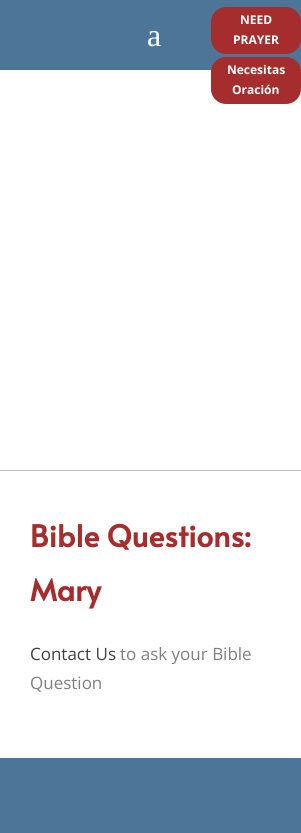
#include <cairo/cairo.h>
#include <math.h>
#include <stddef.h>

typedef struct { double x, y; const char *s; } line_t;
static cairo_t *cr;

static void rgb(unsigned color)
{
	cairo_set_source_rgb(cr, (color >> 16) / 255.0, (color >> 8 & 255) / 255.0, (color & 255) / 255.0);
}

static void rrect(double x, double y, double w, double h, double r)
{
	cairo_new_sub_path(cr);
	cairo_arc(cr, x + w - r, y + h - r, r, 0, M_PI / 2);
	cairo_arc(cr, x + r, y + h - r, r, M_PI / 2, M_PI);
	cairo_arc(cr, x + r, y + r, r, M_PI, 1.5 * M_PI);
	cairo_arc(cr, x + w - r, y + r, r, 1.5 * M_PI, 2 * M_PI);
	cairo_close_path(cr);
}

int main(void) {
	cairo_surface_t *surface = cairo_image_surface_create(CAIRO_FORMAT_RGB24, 301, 833);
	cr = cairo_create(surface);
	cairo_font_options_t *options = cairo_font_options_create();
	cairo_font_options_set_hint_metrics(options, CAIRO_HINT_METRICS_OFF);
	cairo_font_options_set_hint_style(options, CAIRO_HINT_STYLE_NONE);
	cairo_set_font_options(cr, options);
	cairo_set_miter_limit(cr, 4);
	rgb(0xffffff);
	cairo_paint(cr);
	rgb(0x4d7598);
	cairo_rectangle(cr, 0, 0, 301, 70);
	cairo_fill(cr);
	rgb(0xa62d2d);
	rrect(211, 7, 90, 47, 15);
	cairo_fill(cr);
	rrect(211, 57, 90, 47, 15);
	cairo_fill(cr);
	rgb(0xbcbcbc);
	cairo_rectangle(cr, 0, 470, 301, 1);
	cairo_fill(cr);
	rgb(0x4d7598);
	cairo_rectangle(cr, 0, 758, 301, 75);
	cairo_fill(cr);
	cairo_select_font_face(cr, "Liberation Serif", CAIRO_FONT_SLANT_NORMAL, CAIRO_FONT_WEIGHT_NORMAL);
	cairo_set_font_size(cr, 32);
	rgb(0xffffff);
	cairo_move_to(cr, 147, 46);
	cairo_show_text(cr, "a");
	cairo_select_font_face(cr, "Open Sans", CAIRO_FONT_SLANT_NORMAL, CAIRO_FONT_WEIGHT_BOLD);
	cairo_set_font_size(cr, 12);
	{
		static const line_t items[] = {
			{240, 24, "NEED"},
			{233, 44, "PRAYER"},
			{227, 74, "Necesitas"},
			{232, 94, "Oración"},
		};
		for (size_t i = 0; i < sizeof items / sizeof *items; i++) {
			cairo_move_to(cr, items[i].x, items[i].y);
			cairo_show_text(cr, items[i].s);
		}
	}
	cairo_select_font_face(cr, "Alata", CAIRO_FONT_SLANT_NORMAL, CAIRO_FONT_WEIGHT_BOLD);
	cairo_set_font_size(cr, 30);
	rgb(0xa62d2d);
	cairo_move_to(cr, 30, 547);
	cairo_show_text(cr, "Bible Questions:");
	cairo_move_to(cr, 30, 601);
	cairo_show_text(cr, "Mary");
	cairo_select_font_face(cr, "Open Sans", CAIRO_FONT_SLANT_NORMAL, CAIRO_FONT_WEIGHT_NORMAL);
	cairo_set_font_size(cr, 17);
	rgb(0x404040);
	cairo_move_to(cr, 30, 660);
	cairo_show_text(cr, "Contact Us");
	rgb(0x808080);
	cairo_move_to(cr, 120, 660);
	cairo_show_text(cr, "to ask your Bible");
	cairo_move_to(cr, 30, 689);
	cairo_show_text(cr, "Question");
	cairo_surface_write_to_png(surface, "page.png");
	cairo_font_options_destroy(options);
	cairo_destroy(cr);
	cairo_surface_destroy(surface);
	return 0;
}
